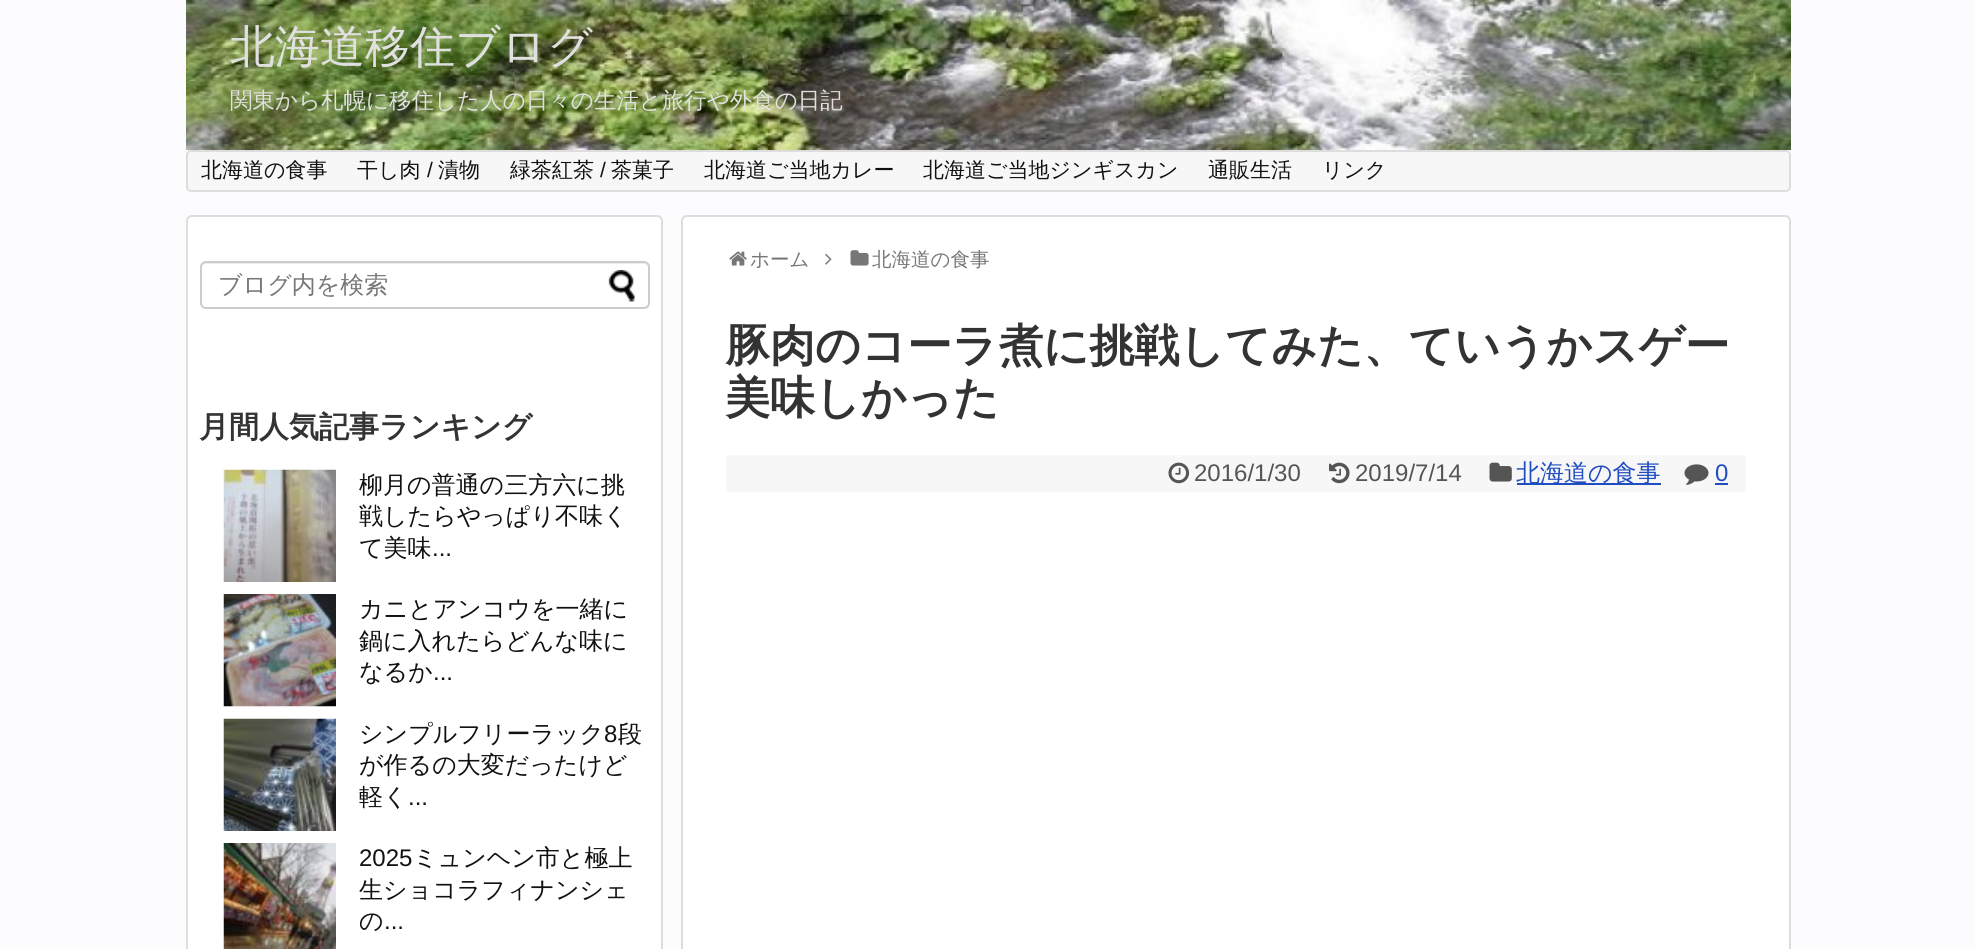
#include <cairo/cairo.h>
#include <math.h>
#include <stddef.h>

typedef struct { double x, y; const char *s; } line_t;
static cairo_t *cr;

static void rgb(unsigned color)
{
	cairo_set_source_rgb(cr, (color >> 16) / 255.0, (color >> 8 & 255) / 255.0, (color & 255) / 255.0);
}

static void rrect(double x, double y, double w, double h, double r)
{
	cairo_new_sub_path(cr);
	cairo_arc(cr, x + w - r, y + h - r, r, 0, M_PI / 2);
	cairo_arc(cr, x + r, y + h - r, r, M_PI / 2, M_PI);
	cairo_arc(cr, x + r, y + r, r, M_PI, 1.5 * M_PI);
	cairo_arc(cr, x + w - r, y + r, r, 1.5 * M_PI, 2 * M_PI);
	cairo_close_path(cr);
}

static void image(const char *path, double x, double y, double w, double h)
{
	cairo_surface_t *image = cairo_image_surface_create_from_png(path);
	cairo_save(cr);
	cairo_set_source_surface(cr, image, x, y);
	cairo_rectangle(cr, x, y, w, h);
	cairo_fill(cr);
	cairo_restore(cr);
	cairo_surface_destroy(image);
}

int main(void) {
	cairo_surface_t *surface = cairo_image_surface_create(CAIRO_FORMAT_RGB24, 1975, 949);
	cr = cairo_create(surface);
	cairo_font_options_t *options = cairo_font_options_create();
	cairo_font_options_set_hint_metrics(options, CAIRO_HINT_METRICS_OFF);
	cairo_font_options_set_hint_style(options, CAIRO_HINT_STYLE_NONE);
	cairo_set_font_options(cr, options);
	cairo_set_miter_limit(cr, 4);
	rgb(0xfcfcff);
	cairo_paint(cr);
	image("img/1.png", 186, 0, 1605, 150);
	rgb(0xf7f7f7);
	rrect(187, 151, 1603, 40, 4);
	cairo_fill_preserve(cr);
	rgb(0xdddddd);
	cairo_stroke(cr);
	rgb(0xffffff);
	rrect(187, 216, 475, 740, 5);
	cairo_fill_preserve(cr);
	rgb(0xdddddd);
	cairo_stroke(cr);
	rgb(0xececec);
	cairo_new_path(cr);
	cairo_move_to(cr, 206, 264);
	cairo_line_to(cr, 644, 264);
	cairo_curve_to(cr, 646, 264, 648, 266, 648, 268);
	cairo_curve_to(cr, 648, 265, 646, 263, 643, 263);
	cairo_line_to(cr, 206, 263);
	cairo_curve_to(cr, 203, 263, 201, 265, 201, 268);
	cairo_curve_to(cr, 201, 266, 203, 264, 206, 264);
	cairo_close_path(cr);
	cairo_fill(cr);
	rrect(201, 262, 448, 46, 5);
	rgb(0xcccccc);
	cairo_stroke(cr);
	image("img/2.png", 608, 270, 27, 32);
	image("img/3.png", 223, 469, 113, 113);
	image("img/4.png", 223, 594, 113, 113);
	image("img/5.png", 223, 718, 113, 113);
	image("img/6.png", 223, 843, 113, 106);
	rgb(0xffffff);
	rrect(682, 216, 1108, 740, 5);
	cairo_fill_preserve(cr);
	rgb(0xdddddd);
	cairo_stroke(cr);
	image("img/7.png", 729, 251, 18, 15);
	image("img/8.png", 825, 253, 7, 12);
	image("img/9.png", 850, 250, 19, 16);
	rgb(0xf7f7f7);
	cairo_rectangle(cr, 726, 455, 1020, 37);
	cairo_fill(cr);
	image("img/10.png", 1168, 462, 22, 22);
	image("img/11.png", 1329, 462, 21, 22);
	image("img/12.png", 1489, 462, 23, 20);
	rgb(0x204dbf);
	cairo_rectangle(cr, 1517, 483, 144, 2);
	cairo_fill(cr);
	image("img/13.png", 1684, 464, 25, 21);
	cairo_rectangle(cr, 1715, 483, 13, 2);
	cairo_fill(cr);
	cairo_select_font_face(cr, "WenQuanYi Zen Hei Medium", CAIRO_FONT_SLANT_NORMAL, CAIRO_FONT_WEIGHT_NORMAL);
	cairo_set_font_size(cr, 45);
	rgb(0xe0e0e0);
	cairo_move_to(cr, 230, 62);
	cairo_show_text(cr, "北海道移住ブログ");
	cairo_set_font_size(cr, 22.5);
	cairo_move_to(cr, 230, 108);
	cairo_show_text(cr, "関東から札幌に移住した人の日々の生活と旅行や外食の日記");
	cairo_set_font_size(cr, 21);
	rgb(0x111111);
	cairo_move_to(cr, 201, 177);
	cairo_show_text(cr, "北海道の食事");
	cairo_move_to(cr, 357, 177);
	cairo_show_text(cr, "干し肉");
	cairo_select_font_face(cr, "Liberation Sans", CAIRO_FONT_SLANT_NORMAL, CAIRO_FONT_WEIGHT_NORMAL);
	cairo_move_to(cr, 427, 177);
	cairo_show_text(cr, "/");
	cairo_select_font_face(cr, "WenQuanYi Zen Hei Medium", CAIRO_FONT_SLANT_NORMAL, CAIRO_FONT_WEIGHT_NORMAL);
	cairo_move_to(cr, 438, 177);
	cairo_show_text(cr, "漬物");
	cairo_move_to(cr, 510, 177);
	cairo_show_text(cr, "緑茶紅茶");
	cairo_select_font_face(cr, "Liberation Sans", CAIRO_FONT_SLANT_NORMAL, CAIRO_FONT_WEIGHT_NORMAL);
	cairo_move_to(cr, 600, 177);
	cairo_show_text(cr, "/");
	cairo_select_font_face(cr, "WenQuanYi Zen Hei Medium", CAIRO_FONT_SLANT_NORMAL, CAIRO_FONT_WEIGHT_NORMAL);
	{
		static const line_t items[] = {
			{611, 177, "茶菓子"},
			{704, 177, "北海道ご当地カレー"},
			{923, 177, "北海道ご当地ジンギスカン"},
			{1208, 177, "通販生活"},
			{1322, 177, "リンク"},
		};
		for (size_t i = 0; i < sizeof items / sizeof *items; i++) {
			cairo_move_to(cr, items[i].x, items[i].y);
			cairo_show_text(cr, items[i].s);
		}
	}
	cairo_set_font_size(cr, 24);
	rgb(0x777777);
	cairo_move_to(cr, 218, 293);
	cairo_show_text(cr, "ブログ内を検索");
	cairo_select_font_face(cr, "WenQuanYi Zen Hei", CAIRO_FONT_SLANT_NORMAL, CAIRO_FONT_WEIGHT_BOLD);
	cairo_set_font_size(cr, 30);
	rgb(0x333333);
	cairo_move_to(cr, 199, 437);
	cairo_show_text(cr, "月間人気記事ランキング");
	cairo_select_font_face(cr, "WenQuanYi Zen Hei Medium", CAIRO_FONT_SLANT_NORMAL, CAIRO_FONT_WEIGHT_NORMAL);
	cairo_set_font_size(cr, 24);
	rgb(0x111111);
	{
		static const line_t items[] = {
			{359, 493, "柳月の普通の三方六に挑"},
			{359, 524, "戦したらやっぱり不味く"},
			{359, 556, "て美味"},
		};
		for (size_t i = 0; i < sizeof items / sizeof *items; i++) {
			cairo_move_to(cr, items[i].x, items[i].y);
			cairo_show_text(cr, items[i].s);
		}
	}
	cairo_select_font_face(cr, "Liberation Sans", CAIRO_FONT_SLANT_NORMAL, CAIRO_FONT_WEIGHT_NORMAL);
	cairo_move_to(cr, 432, 556);
	cairo_show_text(cr, "...");
	cairo_select_font_face(cr, "WenQuanYi Zen Hei Medium", CAIRO_FONT_SLANT_NORMAL, CAIRO_FONT_WEIGHT_NORMAL);
	{
		static const line_t items[] = {
			{359, 617, "カニとアンコウを一緒に"},
			{359, 649, "鍋に入れたらどんな味に"},
			{359, 680, "なるか"},
		};
		for (size_t i = 0; i < sizeof items / sizeof *items; i++) {
			cairo_move_to(cr, items[i].x, items[i].y);
			cairo_show_text(cr, items[i].s);
		}
	}
	cairo_select_font_face(cr, "Liberation Sans", CAIRO_FONT_SLANT_NORMAL, CAIRO_FONT_WEIGHT_NORMAL);
	cairo_move_to(cr, 433, 680);
	cairo_show_text(cr, "...");
	cairo_select_font_face(cr, "WenQuanYi Zen Hei Medium", CAIRO_FONT_SLANT_NORMAL, CAIRO_FONT_WEIGHT_NORMAL);
	cairo_move_to(cr, 359, 742);
	cairo_show_text(cr, "シンプルフリーラック");
	cairo_select_font_face(cr, "Liberation Sans", CAIRO_FONT_SLANT_NORMAL, CAIRO_FONT_WEIGHT_NORMAL);
	cairo_move_to(cr, 604, 742);
	cairo_show_text(cr, "8");
	cairo_select_font_face(cr, "WenQuanYi Zen Hei Medium", CAIRO_FONT_SLANT_NORMAL, CAIRO_FONT_WEIGHT_NORMAL);
	{
		static const line_t items[] = {
			{618, 742, "段"},
			{359, 773, "が作るの大変だったけど"},
			{359, 805, "軽く"},
		};
		for (size_t i = 0; i < sizeof items / sizeof *items; i++) {
			cairo_move_to(cr, items[i].x, items[i].y);
			cairo_show_text(cr, items[i].s);
		}
	}
	cairo_select_font_face(cr, "Liberation Sans", CAIRO_FONT_SLANT_NORMAL, CAIRO_FONT_WEIGHT_NORMAL);
	cairo_move_to(cr, 408, 805);
	cairo_show_text(cr, "...");
	cairo_move_to(cr, 359, 866);
	cairo_show_text(cr, "2025");
	cairo_select_font_face(cr, "WenQuanYi Zen Hei Medium", CAIRO_FONT_SLANT_NORMAL, CAIRO_FONT_WEIGHT_NORMAL);
	{
		static const line_t items[] = {
			{413, 866, "ミュンヘン市と極上"},
			{359, 898, "生ショコラフィナンシェ"},
			{359, 929, "の"},
		};
		for (size_t i = 0; i < sizeof items / sizeof *items; i++) {
			cairo_move_to(cr, items[i].x, items[i].y);
			cairo_show_text(cr, items[i].s);
		}
	}
	cairo_select_font_face(cr, "Liberation Sans", CAIRO_FONT_SLANT_NORMAL, CAIRO_FONT_WEIGHT_NORMAL);
	cairo_move_to(cr, 384, 929);
	cairo_show_text(cr, "...");
	cairo_select_font_face(cr, "WenQuanYi Zen Hei Medium", CAIRO_FONT_SLANT_NORMAL, CAIRO_FONT_WEIGHT_NORMAL);
	cairo_set_font_size(cr, 19.5);
	rgb(0x777777);
	cairo_move_to(cr, 750, 266);
	cairo_show_text(cr, "ホーム");
	cairo_move_to(cr, 872, 266);
	cairo_show_text(cr, "北海道の食事");
	cairo_select_font_face(cr, "WenQuanYi Zen Hei", CAIRO_FONT_SLANT_NORMAL, CAIRO_FONT_WEIGHT_BOLD);
	cairo_set_font_size(cr, 45);
	rgb(0x333333);
	cairo_move_to(cr, 725, 361);
	cairo_show_text(cr, "豚肉のコーラ煮に挑戦してみた、ていうかスゲー");
	cairo_move_to(cr, 725, 413);
	cairo_show_text(cr, "美味しかった");
	cairo_select_font_face(cr, "Liberation Sans", CAIRO_FONT_SLANT_NORMAL, CAIRO_FONT_WEIGHT_NORMAL);
	cairo_set_font_size(cr, 24);
	rgb(0x555555);
	cairo_move_to(cr, 1194, 481);
	cairo_show_text(cr, "2016/1/30");
	cairo_move_to(cr, 1355, 481);
	cairo_show_text(cr, "2019/7/14");
	cairo_select_font_face(cr, "WenQuanYi Zen Hei Medium", CAIRO_FONT_SLANT_NORMAL, CAIRO_FONT_WEIGHT_NORMAL);
	rgb(0x204dbf);
	cairo_move_to(cr, 1516, 481);
	cairo_show_text(cr, "北海道の食事");
	cairo_select_font_face(cr, "Liberation Sans", CAIRO_FONT_SLANT_NORMAL, CAIRO_FONT_WEIGHT_NORMAL);
	cairo_move_to(cr, 1715, 481);
	cairo_show_text(cr, "0");
	cairo_surface_write_to_png(surface, "page.png");
	cairo_font_options_destroy(options);
	cairo_destroy(cr);
	cairo_surface_destroy(surface);
	return 0;
}
